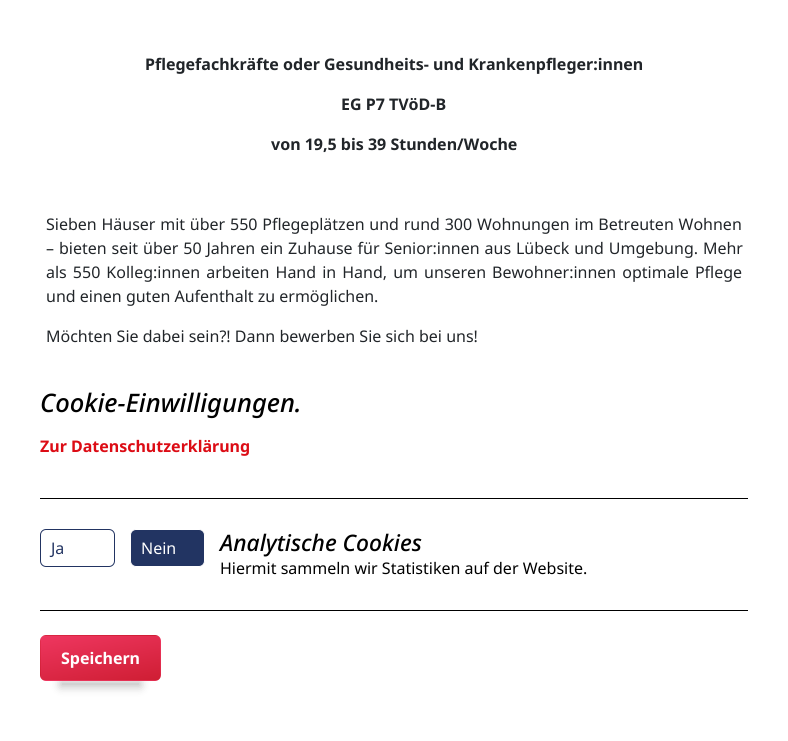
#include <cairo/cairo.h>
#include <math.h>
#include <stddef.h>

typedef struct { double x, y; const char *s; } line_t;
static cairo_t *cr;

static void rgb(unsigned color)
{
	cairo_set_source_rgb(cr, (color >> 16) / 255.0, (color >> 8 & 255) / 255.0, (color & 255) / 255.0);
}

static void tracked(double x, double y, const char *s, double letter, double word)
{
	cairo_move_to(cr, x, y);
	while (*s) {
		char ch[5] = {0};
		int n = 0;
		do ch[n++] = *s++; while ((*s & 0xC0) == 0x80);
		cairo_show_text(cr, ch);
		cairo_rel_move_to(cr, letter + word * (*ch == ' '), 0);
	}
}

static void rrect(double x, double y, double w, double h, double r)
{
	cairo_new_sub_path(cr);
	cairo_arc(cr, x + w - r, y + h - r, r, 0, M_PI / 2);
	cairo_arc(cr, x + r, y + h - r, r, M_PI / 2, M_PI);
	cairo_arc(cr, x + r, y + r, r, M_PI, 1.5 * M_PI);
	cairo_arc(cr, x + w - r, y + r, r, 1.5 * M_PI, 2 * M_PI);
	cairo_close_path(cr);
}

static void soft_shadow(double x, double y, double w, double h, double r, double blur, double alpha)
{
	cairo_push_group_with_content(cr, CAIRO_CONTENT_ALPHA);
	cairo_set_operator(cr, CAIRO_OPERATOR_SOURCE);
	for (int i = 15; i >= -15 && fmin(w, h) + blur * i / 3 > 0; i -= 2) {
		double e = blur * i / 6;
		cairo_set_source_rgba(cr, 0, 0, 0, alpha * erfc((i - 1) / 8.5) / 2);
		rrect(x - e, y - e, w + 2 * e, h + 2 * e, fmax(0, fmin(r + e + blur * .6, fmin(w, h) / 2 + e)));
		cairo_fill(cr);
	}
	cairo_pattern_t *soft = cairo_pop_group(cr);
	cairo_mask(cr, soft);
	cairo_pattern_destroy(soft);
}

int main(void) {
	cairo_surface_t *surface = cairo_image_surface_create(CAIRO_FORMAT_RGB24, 788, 741);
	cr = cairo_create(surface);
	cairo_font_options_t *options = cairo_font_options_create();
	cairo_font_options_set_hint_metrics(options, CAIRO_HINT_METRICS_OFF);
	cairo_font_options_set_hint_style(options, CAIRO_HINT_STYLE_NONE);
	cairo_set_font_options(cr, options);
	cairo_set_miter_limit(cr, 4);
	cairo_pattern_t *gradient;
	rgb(0xffffff);
	cairo_paint(cr);
	rgb(0x000000);
	cairo_rectangle(cr, 40, 498, 708, 1);
	cairo_fill(cr);
	cairo_rectangle(cr, 40, 610, 708, 1);
	cairo_fill(cr);
	rrect(40.5, 529.5, 74, 37, 5.5);
	rgb(0x223462);
	cairo_set_line_width(cr, 1);
	cairo_stroke(cr);
	rrect(130.5, 529.5, 74, 37, 5.5);
	cairo_fill_preserve(cr);
	rgb(0xffffff);
	cairo_stroke(cr);
	rgb(0x000000);
	soft_shadow(61, 682, 79, 4, 0, 5, 0.28);
	cairo_save(cr);
	rrect(40, 635, 121, 46, 6);
	cairo_clip(cr);
	gradient = cairo_pattern_create_linear(107, 646, 94, 582);
	cairo_pattern_add_color_stop_rgba(gradient, 0, 0.812, 0.118, 0.204, 1);
	cairo_pattern_add_color_stop_rgba(gradient, 1, 0.933, 0.212, 0.373, 1);
	cairo_set_source(cr, gradient);
	cairo_pattern_destroy(gradient);
	cairo_rectangle(cr, 41, 635, 119, 1);
	cairo_fill(cr);
	gradient = cairo_pattern_create_linear(-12, 690, -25, 626);
	cairo_pattern_add_color_stop_rgba(gradient, 0, 0.812, 0.118, 0.204, 1);
	cairo_pattern_add_color_stop_rgba(gradient, 1, 0.933, 0.212, 0.373, 1);
	cairo_set_source(cr, gradient);
	cairo_pattern_destroy(gradient);
	cairo_rectangle(cr, 40, 636, 1, 44);
	cairo_fill(cr);
	gradient = cairo_pattern_create_linear(107, 690, 94, 626);
	cairo_pattern_add_color_stop_rgba(gradient, 0, 0.812, 0.118, 0.204, 1);
	cairo_pattern_add_color_stop_rgba(gradient, 1, 0.933, 0.212, 0.373, 1);
	cairo_set_source(cr, gradient);
	cairo_pattern_destroy(gradient);
	cairo_rectangle(cr, 41, 636, 119, 44);
	cairo_fill(cr);
	gradient = cairo_pattern_create_linear(226, 690, 213, 626);
	cairo_pattern_add_color_stop_rgba(gradient, 0, 0.812, 0.118, 0.204, 1);
	cairo_pattern_add_color_stop_rgba(gradient, 1, 0.933, 0.212, 0.373, 1);
	cairo_set_source(cr, gradient);
	cairo_pattern_destroy(gradient);
	cairo_rectangle(cr, 160, 636, 1, 44);
	cairo_fill(cr);
	gradient = cairo_pattern_create_linear(107, 734, 94, 670);
	cairo_pattern_add_color_stop_rgba(gradient, 0, 0.812, 0.118, 0.204, 1);
	cairo_pattern_add_color_stop_rgba(gradient, 1, 0.933, 0.212, 0.373, 1);
	cairo_set_source(cr, gradient);
	cairo_pattern_destroy(gradient);
	cairo_rectangle(cr, 41, 680, 119, 1);
	cairo_fill(cr);
	cairo_restore(cr);
	cairo_select_font_face(cr, "Noto Sans", CAIRO_FONT_SLANT_NORMAL, CAIRO_FONT_WEIGHT_BOLD);
	cairo_set_font_size(cr, 16);
	rgb(0x212529);
	{
		static const line_t items[] = {
			{145, 70, "Pflegefachkräfte oder Gesundheits- und Krankenpfleger:innen"},
			{341, 110, "EG P7 TVöD-B"},
			{271, 150, "von 19,5 bis 39 Stunden/Woche"},
		};
		for (size_t i = 0; i < sizeof items / sizeof *items; i++) {
			cairo_move_to(cr, items[i].x, items[i].y);
			cairo_show_text(cr, items[i].s);
		}
	}
	cairo_select_font_face(cr, "Noto Sans", CAIRO_FONT_SLANT_NORMAL, CAIRO_FONT_WEIGHT_NORMAL);
	tracked(46, 230, "Sieben Häuser mit über 550 Pflegeplätzen und rund 300 Wohnungen im Betreuten Wohnen", 0, 0.6);
	tracked(46, 254, "– bieten seit über 50 Jahren ein Zuhause für Senior:innen aus Lübeck und Umgebung. Mehr", 0, 0.75);
	tracked(46, 278, "als 550 Kolleg:innen arbeiten Hand in Hand, um unseren Bewohner:innen optimale Pflege", 0, 1.9);
	cairo_move_to(cr, 46, 302);
	cairo_show_text(cr, "und einen guten Aufenthalt zu ermöglichen.");
	cairo_move_to(cr, 46, 342);
	cairo_show_text(cr, "Möchten Sie dabei sein?! Dann bewerben Sie sich bei uns!");
	cairo_select_font_face(cr, "Noto Sans Medium", CAIRO_FONT_SLANT_ITALIC, CAIRO_FONT_WEIGHT_NORMAL);
	cairo_set_font_size(cr, 25.5);
	rgb(0x000000);
	cairo_move_to(cr, 40, 412);
	cairo_show_text(cr, "Cookie-Einwilligungen.");
	cairo_select_font_face(cr, "Noto Sans", CAIRO_FONT_SLANT_NORMAL, CAIRO_FONT_WEIGHT_BOLD);
	cairo_set_font_size(cr, 16);
	rgb(0xdc0c15);
	cairo_move_to(cr, 40, 452);
	cairo_show_text(cr, "Zur Datenschutzerklärung");
	cairo_select_font_face(cr, "Noto Sans", CAIRO_FONT_SLANT_NORMAL, CAIRO_FONT_WEIGHT_NORMAL);
	rgb(0x223462);
	cairo_move_to(cr, 51, 554);
	cairo_show_text(cr, "Ja");
	rgb(0xffffff);
	cairo_move_to(cr, 141, 554);
	cairo_show_text(cr, "Nein");
	cairo_select_font_face(cr, "Noto Sans Medium", CAIRO_FONT_SLANT_ITALIC, CAIRO_FONT_WEIGHT_NORMAL);
	cairo_set_font_size(cr, 22.75);
	rgb(0x000000);
	cairo_move_to(cr, 220, 551);
	cairo_show_text(cr, "Analytische Cookies");
	cairo_select_font_face(cr, "Noto Sans", CAIRO_FONT_SLANT_NORMAL, CAIRO_FONT_WEIGHT_NORMAL);
	cairo_set_font_size(cr, 16);
	cairo_move_to(cr, 220, 574);
	cairo_show_text(cr, "Hiermit sammeln wir Statistiken auf der Website.");
	cairo_select_font_face(cr, "Noto Sans", CAIRO_FONT_SLANT_NORMAL, CAIRO_FONT_WEIGHT_BOLD);
	rgb(0xffffff);
	cairo_move_to(cr, 61, 664);
	cairo_show_text(cr, "Speichern");
	cairo_surface_write_to_png(surface, "page.png");
	cairo_font_options_destroy(options);
	cairo_destroy(cr);
	cairo_surface_destroy(surface);
	return 0;
}
